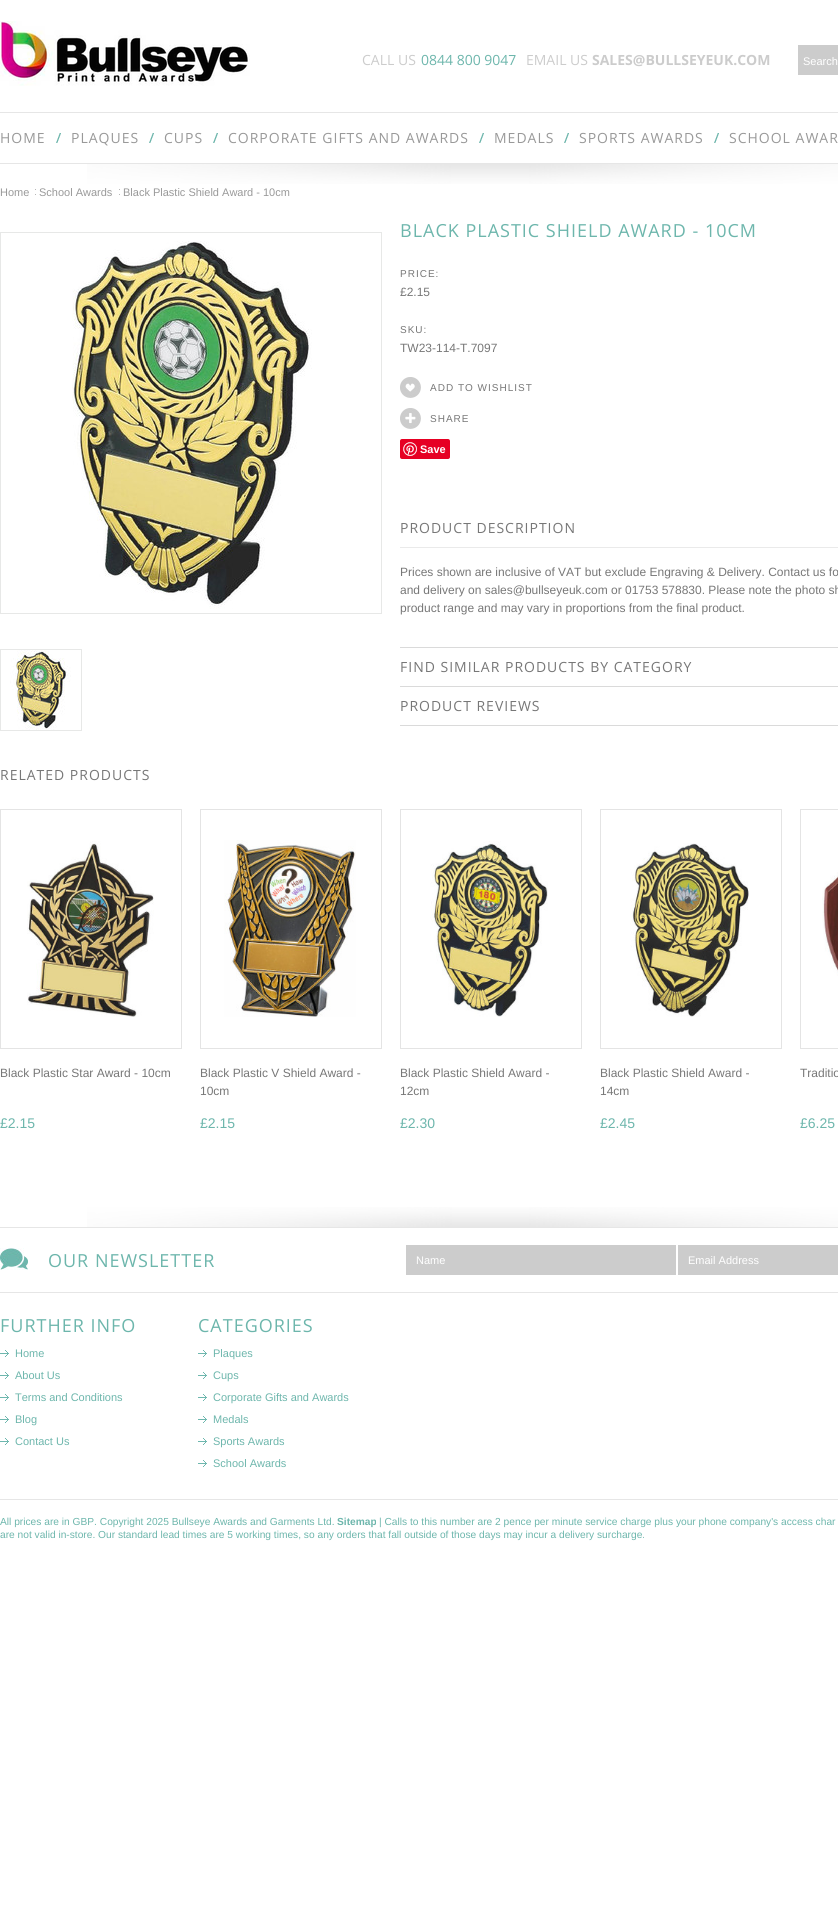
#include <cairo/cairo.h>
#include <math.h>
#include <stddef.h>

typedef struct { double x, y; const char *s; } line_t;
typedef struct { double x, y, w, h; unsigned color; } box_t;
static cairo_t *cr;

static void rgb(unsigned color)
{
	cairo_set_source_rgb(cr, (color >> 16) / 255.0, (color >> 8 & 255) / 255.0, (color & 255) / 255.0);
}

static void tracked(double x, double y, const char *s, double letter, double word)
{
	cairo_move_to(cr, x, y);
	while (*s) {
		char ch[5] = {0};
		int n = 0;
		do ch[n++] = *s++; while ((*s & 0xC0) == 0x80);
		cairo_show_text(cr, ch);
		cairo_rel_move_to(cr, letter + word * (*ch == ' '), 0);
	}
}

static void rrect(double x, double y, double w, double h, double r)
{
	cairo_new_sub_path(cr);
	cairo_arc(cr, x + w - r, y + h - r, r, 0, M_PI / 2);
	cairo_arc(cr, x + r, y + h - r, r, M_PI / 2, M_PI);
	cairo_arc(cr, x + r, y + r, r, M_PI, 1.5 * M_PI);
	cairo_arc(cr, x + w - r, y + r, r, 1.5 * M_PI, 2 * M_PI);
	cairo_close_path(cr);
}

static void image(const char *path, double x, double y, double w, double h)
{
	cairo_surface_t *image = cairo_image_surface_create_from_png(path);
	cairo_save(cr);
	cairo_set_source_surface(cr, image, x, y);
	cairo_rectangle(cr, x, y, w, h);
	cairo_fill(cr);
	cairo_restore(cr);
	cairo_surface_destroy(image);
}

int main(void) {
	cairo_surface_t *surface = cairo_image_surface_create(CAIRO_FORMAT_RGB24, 838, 1915);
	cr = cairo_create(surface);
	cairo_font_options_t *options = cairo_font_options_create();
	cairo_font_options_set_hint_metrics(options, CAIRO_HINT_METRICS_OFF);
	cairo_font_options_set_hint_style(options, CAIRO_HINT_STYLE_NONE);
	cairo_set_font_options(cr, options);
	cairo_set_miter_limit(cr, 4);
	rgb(0xffffff);
	cairo_paint(cr);
	image("img/1.png", 0, 21, 250, 65);
	{
		static const box_t items[] = {
			{798, 45, 40, 30, 0xcccccc},
			{0, 112, 838, 1, 0xe6e6e6},
			{0, 163, 838, 1, 0xe6e6e6},
		};
		for (size_t i = 0; i < sizeof items / sizeof *items; i++) {
			rgb(items[i].color);
			cairo_rectangle(cr, items[i].x, items[i].y, items[i].w, items[i].h);
			cairo_fill(cr);
		}
	}
	image("img/2.png", 56, 133, 5, 10);
	image("img/2.png", 149, 133, 5, 10);
	image("img/2.png", 213, 133, 5, 10);
	image("img/2.png", 479, 133, 5, 10);
	image("img/2.png", 564, 133, 5, 10);
	image("img/2.png", 714, 133, 5, 10);
	image("img/3.png", 87, 164, 751, 20);
	image("img/4.png", 35, 189, 1, 6);
	image("img/4.png", 119, 189, 1, 6);
	cairo_rectangle(cr, 0.5, 232.5, 381, 381);
	rgb(0xe7e8e7);
	cairo_set_line_width(cr, 1);
	cairo_stroke(cr);
	image("img/5.png", 72, 241, 240, 368);
	cairo_rectangle(cr, 0.5, 649.5, 81, 81);
	cairo_stroke(cr);
	image("img/6.png", 10, 650, 61, 80);
	image("img/7.png", 400, 377, 21, 21);
	image("img/8.png", 400, 408, 21, 21);
	rgb(0xe60023);
	rrect(400, 439, 50, 20, 2);
	cairo_fill(cr);
	image("img/9.png", 403, 442, 14, 14);
	{
		static const box_t items[] = {
			{400, 547, 438, 1, 0xeaeaea},
			{400, 647, 438, 1, 0xdadada},
			{400, 725, 438, 1, 0xdadada},
			{400, 686, 438, 1, 0xdadada},
		};
		for (size_t i = 0; i < sizeof items / sizeof *items; i++) {
			rgb(items[i].color);
			cairo_rectangle(cr, items[i].x, items[i].y, items[i].w, items[i].h);
			cairo_fill(cr);
		}
	}
	cairo_rectangle(cr, 0.5, 809.5, 181, 239);
	rgb(0xe4e4e4);
	cairo_stroke(cr);
	image("img/10.png", 27, 841, 127, 176);
	cairo_rectangle(cr, 200.5, 809.5, 181, 239);
	cairo_stroke(cr);
	image("img/11.png", 224, 840, 132, 177);
	cairo_rectangle(cr, 400.5, 809.5, 181, 239);
	cairo_stroke(cr);
	image("img/12.png", 430, 841, 118, 176);
	cairo_rectangle(cr, 600.5, 809.5, 181, 239);
	cairo_stroke(cr);
	image("img/13.png", 630, 843, 119, 174);
	cairo_rectangle(cr, 800.5, 809.5, 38, 239);
	cairo_stroke(cr);
	image("img/14.png", 822, 872, 16, 104);
	image("img/15.png", 87, 1207, 751, 20);
	rgb(0xe6e6e6);
	cairo_rectangle(cr, 0, 1227, 838, 1);
	cairo_fill(cr);
	cairo_rectangle(cr, 0, 1292, 838, 1);
	cairo_fill(cr);
	image("img/16.png", 0, 1248, 28, 22);
	rgb(0xcccccc);
	cairo_rectangle(cr, 406, 1245, 270, 30);
	cairo_fill(cr);
	cairo_rectangle(cr, 678, 1245, 160, 30);
	cairo_fill(cr);
	image("img/17.png", 0, 1350, 9, 7);
	image("img/17.png", 0, 1372, 9, 7);
	image("img/17.png", 0, 1394, 9, 7);
	image("img/17.png", 0, 1416, 9, 7);
	image("img/17.png", 0, 1438, 9, 7);
	image("img/17.png", 198, 1350, 9, 7);
	image("img/17.png", 198, 1372, 9, 7);
	image("img/17.png", 198, 1394, 9, 7);
	image("img/17.png", 198, 1416, 9, 7);
	image("img/17.png", 198, 1438, 9, 7);
	image("img/17.png", 198, 1460, 9, 7);
	rgb(0xe6e6e6);
	cairo_rectangle(cr, 0, 1499, 838, 1);
	cairo_fill(cr);
	cairo_select_font_face(cr, "Open Sans", CAIRO_FONT_SLANT_NORMAL, CAIRO_FONT_WEIGHT_NORMAL);
	cairo_set_font_size(cr, 14);
	rgb(0xcccccc);
	cairo_move_to(cr, 362, 65);
	cairo_show_text(cr, "CALL US");
	rgb(0x6db6ac);
	cairo_move_to(cr, 421, 65);
	cairo_show_text(cr, "0844 800 9047");
	rgb(0xcccccc);
	cairo_move_to(cr, 526, 65);
	cairo_show_text(cr, "EMAIL US");
	cairo_select_font_face(cr, "Open Sans", CAIRO_FONT_SLANT_NORMAL, CAIRO_FONT_WEIGHT_BOLD);
	cairo_move_to(cr, 592, 65);
	cairo_show_text(cr, "SALES@BULLSEYEUK.COM");
	cairo_select_font_face(cr, "Liberation Sans", CAIRO_FONT_SLANT_NORMAL, CAIRO_FONT_WEIGHT_NORMAL);
	cairo_set_font_size(cr, 11);
	rgb(0xffffff);
	cairo_move_to(cr, 803, 65);
	cairo_show_text(cr, "Search");
	cairo_select_font_face(cr, "Open Sans", CAIRO_FONT_SLANT_NORMAL, CAIRO_FONT_WEIGHT_NORMAL);
	cairo_set_font_size(cr, 14);
	rgb(0x999999);
	{
		static const line_t items[] = {
			{0, 143, "HOME"},
			{71, 143, "PLAQUES"},
			{164, 143, "CUPS"},
			{228, 143, "CORPORATE GIFTS AND AWARDS"},
			{494, 143, "MEDALS"},
			{579, 143, "SPORTS AWARDS"},
			{729, 143, "SCHOOL AWAR"},
		};
		for (size_t i = 0; i < sizeof items / sizeof *items; i++) {
			tracked(items[i].x, items[i].y, items[i].s, 1, 0);
		}
	}
	cairo_select_font_face(cr, "Liberation Sans", CAIRO_FONT_SLANT_NORMAL, CAIRO_FONT_WEIGHT_NORMAL);
	cairo_set_font_size(cr, 11);
	{
		static const line_t items[] = {
			{0, 196, "Home"},
			{39, 196, "School Awards"},
			{123, 196, "Black Plastic Shield Award - 10cm"},
		};
		for (size_t i = 0; i < sizeof items / sizeof *items; i++) {
			cairo_move_to(cr, items[i].x, items[i].y);
			cairo_show_text(cr, items[i].s);
		}
	}
	cairo_select_font_face(cr, "Open Sans", CAIRO_FONT_SLANT_NORMAL, CAIRO_FONT_WEIGHT_NORMAL);
	cairo_set_font_size(cr, 18);
	rgb(0x6db6ac);
	tracked(400, 237, "BLACK PLASTIC SHIELD AWARD - 10CM", 1, 0);
	cairo_select_font_face(cr, "Liberation Sans", CAIRO_FONT_SLANT_NORMAL, CAIRO_FONT_WEIGHT_NORMAL);
	cairo_set_font_size(cr, 10);
	rgb(0x777777);
	tracked(400, 277, "PRICE:", 1, 0);
	cairo_set_font_size(cr, 12);
	cairo_move_to(cr, 400, 296);
	cairo_show_text(cr, "£2.15");
	cairo_set_font_size(cr, 10);
	tracked(400, 333, "SKU:", 1, 0);
	cairo_set_font_size(cr, 12);
	cairo_move_to(cr, 400, 352);
	cairo_show_text(cr, "TW23-114-T.7097");
	cairo_set_font_size(cr, 10);
	tracked(430, 391, "ADD TO WISHLIST", 1, 0);
	tracked(430, 422, "SHARE", 1, 0);
	cairo_select_font_face(cr, "Liberation Sans", CAIRO_FONT_SLANT_NORMAL, CAIRO_FONT_WEIGHT_BOLD);
	cairo_set_font_size(cr, 11);
	rgb(0xffffff);
	cairo_move_to(cr, 420, 453);
	cairo_show_text(cr, "Save");
	cairo_select_font_face(cr, "Open Sans", CAIRO_FONT_SLANT_NORMAL, CAIRO_FONT_WEIGHT_NORMAL);
	cairo_set_font_size(cr, 14);
	rgb(0x777777);
	tracked(400, 533, "PRODUCT DESCRIPTION", 1, 0);
	cairo_select_font_face(cr, "Liberation Sans", CAIRO_FONT_SLANT_NORMAL, CAIRO_FONT_WEIGHT_NORMAL);
	cairo_set_font_size(cr, 12);
	{
		static const line_t items[] = {
			{400, 576, "Prices shown are inclusive of VAT but exclude Engraving & Delivery. Contact us fo"},
			{400, 594, "and delivery on sales@bullseyeuk.com or 01753 578830. Please note the photo sh"},
			{400, 612, "product range and may vary in proportions from the final product."},
		};
		for (size_t i = 0; i < sizeof items / sizeof *items; i++) {
			cairo_move_to(cr, items[i].x, items[i].y);
			cairo_show_text(cr, items[i].s);
		}
	}
	cairo_select_font_face(cr, "Open Sans", CAIRO_FONT_SLANT_NORMAL, CAIRO_FONT_WEIGHT_NORMAL);
	cairo_set_font_size(cr, 14);
	{
		static const line_t items[] = {
			{400, 672, "FIND SIMILAR PRODUCTS BY CATEGORY"},
			{400, 711, "PRODUCT REVIEWS"},
			{0, 780, "RELATED PRODUCTS"},
		};
		for (size_t i = 0; i < sizeof items / sizeof *items; i++) {
			tracked(items[i].x, items[i].y, items[i].s, 1, 0);
		}
	}
	cairo_select_font_face(cr, "Liberation Sans", CAIRO_FONT_SLANT_NORMAL, CAIRO_FONT_WEIGHT_NORMAL);
	cairo_set_font_size(cr, 12);
	cairo_move_to(cr, 0, 1077);
	cairo_show_text(cr, "Black Plastic Star Award - 10cm");
	cairo_set_font_size(cr, 14);
	rgb(0x6db6ac);
	cairo_move_to(cr, 0, 1128);
	cairo_show_text(cr, "£2.15");
	cairo_set_font_size(cr, 12);
	rgb(0x777777);
	cairo_move_to(cr, 200, 1077);
	cairo_show_text(cr, "Black Plastic V Shield Award -");
	cairo_move_to(cr, 200, 1095);
	cairo_show_text(cr, "10cm");
	cairo_set_font_size(cr, 14);
	rgb(0x6db6ac);
	cairo_move_to(cr, 200, 1128);
	cairo_show_text(cr, "£2.15");
	cairo_set_font_size(cr, 12);
	rgb(0x777777);
	cairo_move_to(cr, 400, 1077);
	cairo_show_text(cr, "Black Plastic Shield Award -");
	cairo_move_to(cr, 400, 1095);
	cairo_show_text(cr, "12cm");
	cairo_set_font_size(cr, 14);
	rgb(0x6db6ac);
	cairo_move_to(cr, 400, 1128);
	cairo_show_text(cr, "£2.30");
	cairo_set_font_size(cr, 12);
	rgb(0x777777);
	cairo_move_to(cr, 600, 1077);
	cairo_show_text(cr, "Black Plastic Shield Award -");
	cairo_move_to(cr, 600, 1095);
	cairo_show_text(cr, "14cm");
	cairo_set_font_size(cr, 14);
	rgb(0x6db6ac);
	cairo_move_to(cr, 600, 1128);
	cairo_show_text(cr, "£2.45");
	cairo_set_font_size(cr, 12);
	rgb(0x777777);
	cairo_move_to(cr, 800, 1077);
	cairo_show_text(cr, "Traditio");
	cairo_set_font_size(cr, 14);
	rgb(0x6db6ac);
	cairo_move_to(cr, 800, 1128);
	cairo_show_text(cr, "£6.25");
	cairo_select_font_face(cr, "Open Sans", CAIRO_FONT_SLANT_NORMAL, CAIRO_FONT_WEIGHT_NORMAL);
	cairo_set_font_size(cr, 18);
	tracked(48, 1267, "OUR NEWSLETTER", 1, 0);
	cairo_select_font_face(cr, "Liberation Sans", CAIRO_FONT_SLANT_NORMAL, CAIRO_FONT_WEIGHT_NORMAL);
	cairo_set_font_size(cr, 11);
	rgb(0xffffff);
	cairo_move_to(cr, 416, 1264);
	cairo_show_text(cr, "Name");
	cairo_move_to(cr, 688, 1264);
	cairo_show_text(cr, "Email Address");
	cairo_select_font_face(cr, "Open Sans", CAIRO_FONT_SLANT_NORMAL, CAIRO_FONT_WEIGHT_NORMAL);
	cairo_set_font_size(cr, 18);
	rgb(0x6db6ac);
	tracked(0, 1332, "FURTHER INFO", 1, 0);
	cairo_select_font_face(cr, "Liberation Sans", CAIRO_FONT_SLANT_NORMAL, CAIRO_FONT_WEIGHT_NORMAL);
	cairo_set_font_size(cr, 11);
	{
		static const line_t items[] = {
			{15, 1357, "Home"},
			{15, 1379, "About Us"},
			{15, 1401, "Terms and Conditions"},
			{15, 1423, "Blog"},
			{15, 1445, "Contact Us"},
		};
		for (size_t i = 0; i < sizeof items / sizeof *items; i++) {
			cairo_move_to(cr, items[i].x, items[i].y);
			cairo_show_text(cr, items[i].s);
		}
	}
	cairo_select_font_face(cr, "Open Sans", CAIRO_FONT_SLANT_NORMAL, CAIRO_FONT_WEIGHT_NORMAL);
	cairo_set_font_size(cr, 18);
	tracked(198, 1332, "CATEGORIES", 1, 0);
	cairo_select_font_face(cr, "Liberation Sans", CAIRO_FONT_SLANT_NORMAL, CAIRO_FONT_WEIGHT_NORMAL);
	cairo_set_font_size(cr, 11);
	{
		static const line_t items[] = {
			{213, 1357, "Plaques"},
			{213, 1379, "Cups"},
			{213, 1401, "Corporate Gifts and Awards"},
			{213, 1423, "Medals"},
			{213, 1445, "Sports Awards"},
			{213, 1467, "School Awards"},
		};
		for (size_t i = 0; i < sizeof items / sizeof *items; i++) {
			cairo_move_to(cr, items[i].x, items[i].y);
			cairo_show_text(cr, items[i].s);
		}
	}
	cairo_set_font_size(cr, 10.2);
	cairo_move_to(cr, 0, 1525);
	cairo_show_text(cr, "All prices are in GBP. Copyright 2025 Bullseye Awards and Garments Ltd.");
	cairo_select_font_face(cr, "Liberation Sans", CAIRO_FONT_SLANT_NORMAL, CAIRO_FONT_WEIGHT_BOLD);
	cairo_move_to(cr, 337, 1525);
	cairo_show_text(cr, "Sitemap");
	cairo_select_font_face(cr, "Liberation Sans", CAIRO_FONT_SLANT_NORMAL, CAIRO_FONT_WEIGHT_NORMAL);
	cairo_move_to(cr, 379, 1525);
	cairo_show_text(cr, "| Calls to this number are 2 pence per minute service charge plus your phone company's access char");
	cairo_move_to(cr, 0, 1538);
	cairo_show_text(cr, "are not valid in-store. Our standard lead times are 5 working times, so any orders that fall outside of those days may incur a delivery surcharge.");
	cairo_surface_write_to_png(surface, "page.png");
	cairo_font_options_destroy(options);
	cairo_destroy(cr);
	cairo_surface_destroy(surface);
	return 0;
}
